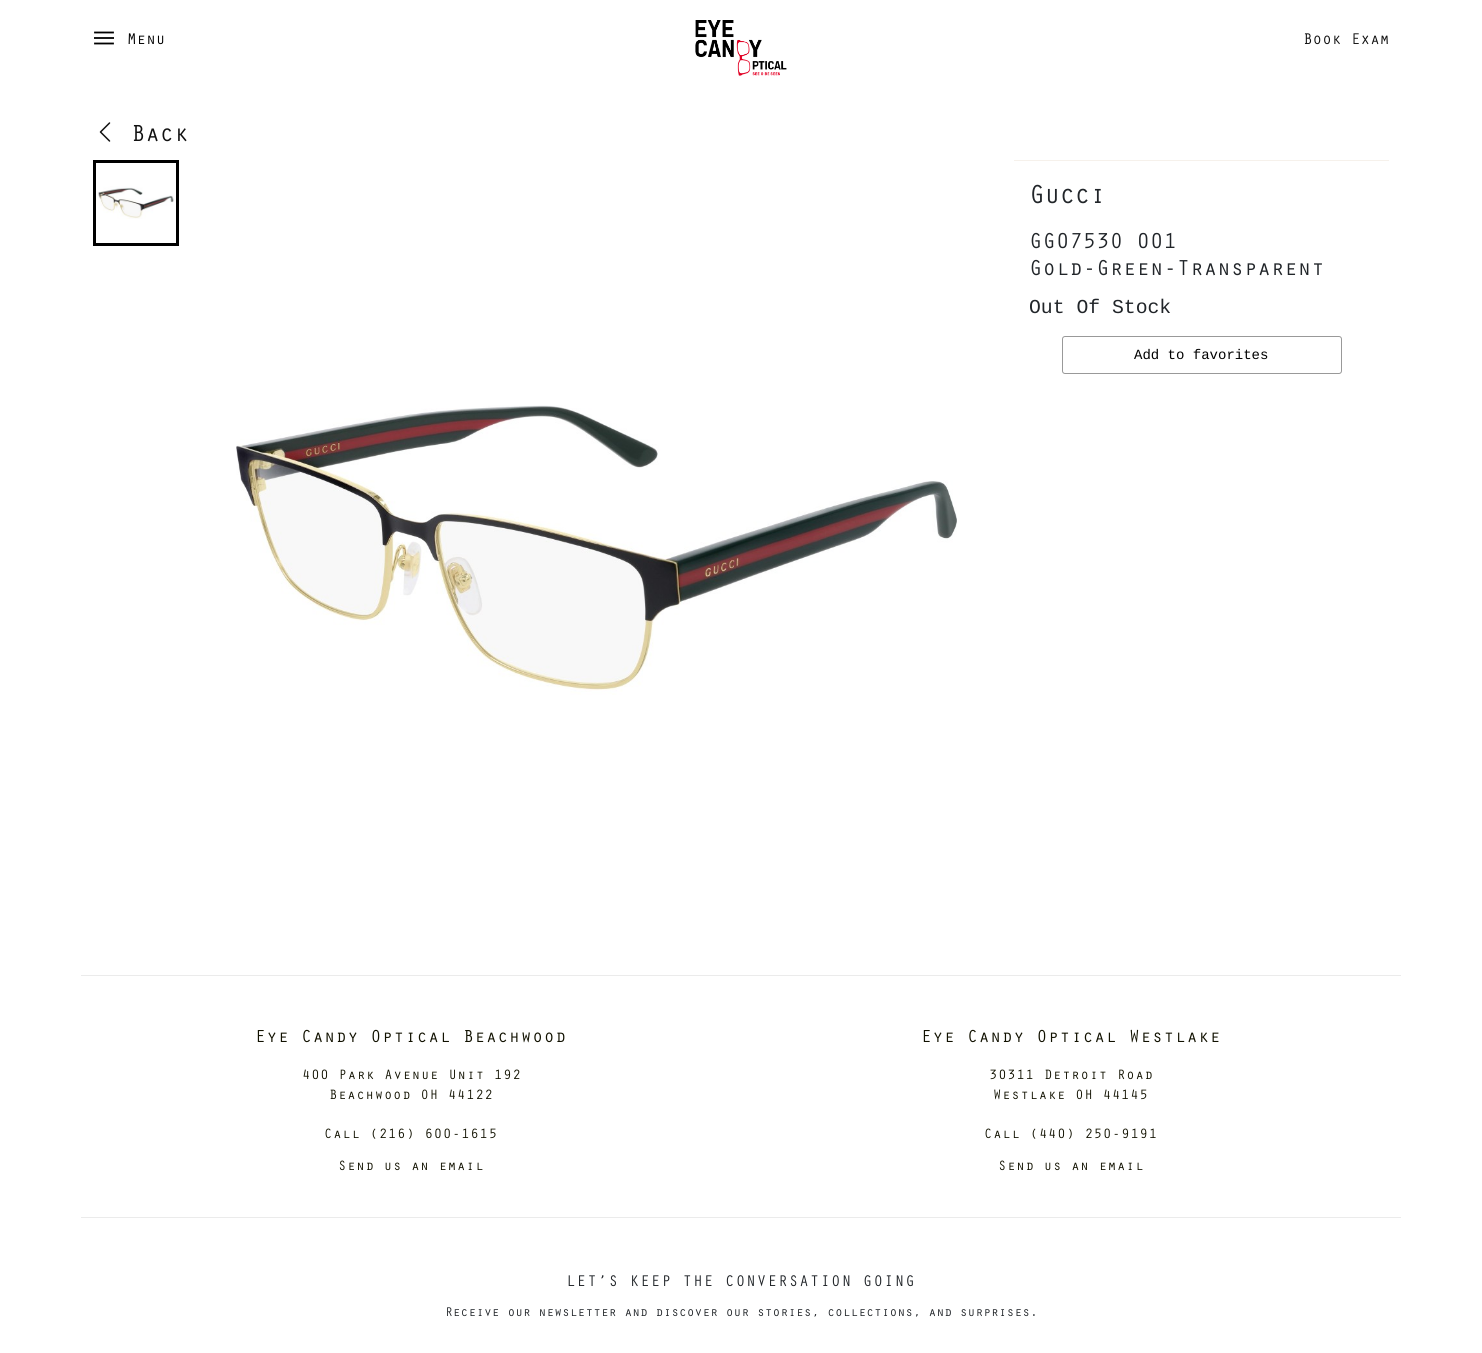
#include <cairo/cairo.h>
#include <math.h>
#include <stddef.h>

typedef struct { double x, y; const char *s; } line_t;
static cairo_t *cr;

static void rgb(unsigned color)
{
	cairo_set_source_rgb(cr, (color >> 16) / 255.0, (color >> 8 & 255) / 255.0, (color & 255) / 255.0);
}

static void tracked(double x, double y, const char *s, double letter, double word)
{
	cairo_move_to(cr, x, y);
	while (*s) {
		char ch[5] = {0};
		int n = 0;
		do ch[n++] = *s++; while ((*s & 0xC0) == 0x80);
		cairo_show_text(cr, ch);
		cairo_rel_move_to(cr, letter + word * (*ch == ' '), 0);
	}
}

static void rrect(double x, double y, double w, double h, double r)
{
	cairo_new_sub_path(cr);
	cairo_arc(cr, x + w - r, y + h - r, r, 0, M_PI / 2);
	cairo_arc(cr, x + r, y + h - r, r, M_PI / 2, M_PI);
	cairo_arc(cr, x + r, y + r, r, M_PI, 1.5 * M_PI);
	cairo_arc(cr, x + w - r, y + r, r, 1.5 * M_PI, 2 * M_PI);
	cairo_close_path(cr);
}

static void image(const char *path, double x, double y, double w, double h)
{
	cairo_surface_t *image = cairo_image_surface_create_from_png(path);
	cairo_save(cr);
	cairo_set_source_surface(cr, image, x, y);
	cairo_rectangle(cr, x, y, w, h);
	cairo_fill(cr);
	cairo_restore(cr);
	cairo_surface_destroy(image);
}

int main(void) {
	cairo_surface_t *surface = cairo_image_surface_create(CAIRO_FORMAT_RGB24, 1482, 1353);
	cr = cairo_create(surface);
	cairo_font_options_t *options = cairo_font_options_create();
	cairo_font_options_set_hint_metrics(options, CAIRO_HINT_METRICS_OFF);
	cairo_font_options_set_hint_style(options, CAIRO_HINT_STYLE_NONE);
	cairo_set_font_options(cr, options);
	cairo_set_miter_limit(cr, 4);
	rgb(0xffffff);
	cairo_paint(cr);
	cairo_new_path(cr);
	cairo_move_to(cr, 113, 32.5);
	cairo_line_to(cr, 95, 32.5);
	rgb(0x000000);
	cairo_set_line_width(cr, 1.8);
	cairo_set_line_cap(cr, CAIRO_LINE_CAP_SQUARE);
	cairo_stroke(cr);
	rgb(0x1a1a1a);
	cairo_rectangle(cr, 94, 37, 20, 2);
	cairo_fill(cr);
	cairo_new_path(cr);
	cairo_move_to(cr, 113, 43.5);
	cairo_line_to(cr, 95, 43.5);
	rgb(0x000000);
	cairo_stroke(cr);
	image("img/1.png", 695, 20, 92, 56);
	image("img/2.png", 99, 122, 12, 20);
	cairo_rectangle(cr, 94.5, 161.5, 83, 83);
	cairo_set_line_width(cr, 3);
	cairo_set_line_cap(cr, CAIRO_LINE_CAP_BUTT);
	cairo_stroke(cr);
	image("img/3.png", 96, 186, 78, 33);
	image("img/4.png", 236, 405, 721, 290);
	rgb(0xf6f1eb);
	cairo_rectangle(cr, 1014, 160, 375, 1);
	cairo_fill(cr);
	rrect(1062.5, 336.5, 279, 37, 2.5);
	rgb(0x999999);
	cairo_set_line_width(cr, 1);
	cairo_stroke(cr);
	rgb(0xebebeb);
	cairo_rectangle(cr, 81, 975, 1320, 1);
	cairo_fill(cr);
	cairo_rectangle(cr, 81, 1217, 1320, 1);
	cairo_fill(cr);
	cairo_select_font_face(cr, "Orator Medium", CAIRO_FONT_SLANT_NORMAL, CAIRO_FONT_WEIGHT_NORMAL);
	cairo_set_font_size(cr, 16);
	rgb(0x000000);
	cairo_move_to(cr, 127, 44);
	cairo_show_text(cr, "Menu");
	rgb(0x111111);
	cairo_move_to(cr, 1303, 44);
	cairo_show_text(cr, "Book Exam");
	cairo_set_font_size(cr, 24);
	cairo_move_to(cr, 131, 141);
	cairo_show_text(cr, "Back");
	cairo_set_font_size(cr, 27);
	rgb(0x212529);
	tracked(1029, 203, "Gucci", -1, 0);
	cairo_set_font_size(cr, 22.4);
	cairo_move_to(cr, 1029, 248);
	cairo_show_text(cr, "GG0753O 001");
	cairo_move_to(cr, 1029, 275);
	cairo_show_text(cr, "Gold-Green-Transparent");
	cairo_select_font_face(cr, "Liberation Mono", CAIRO_FONT_SLANT_NORMAL, CAIRO_FONT_WEIGHT_NORMAL);
	cairo_set_font_size(cr, 19.75);
	cairo_move_to(cr, 1029, 313);
	cairo_show_text(cr, "Out Of Stock");
	cairo_set_font_size(cr, 14);
	rgb(0x000000);
	cairo_move_to(cr, 1134, 359);
	cairo_show_text(cr, "Add to favorites");
	cairo_select_font_face(cr, "Orator Medium", CAIRO_FONT_SLANT_NORMAL, CAIRO_FONT_WEIGHT_NORMAL);
	cairo_set_font_size(cr, 18);
	rgb(0x111100);
	tracked(255, 1042, "Eye Candy Optical Beachwood", 0.75, 0);
	cairo_set_font_size(cr, 14);
	{
		static const line_t items[] = {
			{302, 1079, "400 Park Avenue Unit 192"},
			{329, 1099, "Beachwood OH 44122"},
			{324, 1138, "Call (216) 600-1615"},
			{338, 1170, "Send us an email"},
		};
		for (size_t i = 0; i < sizeof items / sizeof *items; i++) {
			tracked(items[i].x, items[i].y, items[i].s, 0.75, 0);
		}
	}
	cairo_set_font_size(cr, 18);
	tracked(921, 1042, "Eye Candy Optical Westlake", 0.75, 0);
	cairo_set_font_size(cr, 14);
	{
		static const line_t items[] = {
			{989, 1079, "30311 Detroit Road"},
			{993, 1099, "Westlake OH 44145"},
			{984, 1138, "Call (440) 250-9191"},
			{998, 1170, "Send us an email"},
		};
		for (size_t i = 0; i < sizeof items / sizeof *items; i++) {
			tracked(items[i].x, items[i].y, items[i].s, 0.75, 0);
		}
	}
	cairo_set_font_size(cr, 16);
	rgb(0x212529);
	tracked(566, 1286, "LET’S KEEP THE CONVERSATION GOING", 1, 0);
	cairo_set_font_size(cr, 13);
	cairo_move_to(cr, 445, 1316);
	cairo_show_text(cr, "Receive our newsletter and discover our stories, collections, and surprises.");
	cairo_surface_write_to_png(surface, "page.png");
	cairo_font_options_destroy(options);
	cairo_destroy(cr);
	cairo_surface_destroy(surface);
	return 0;
}
